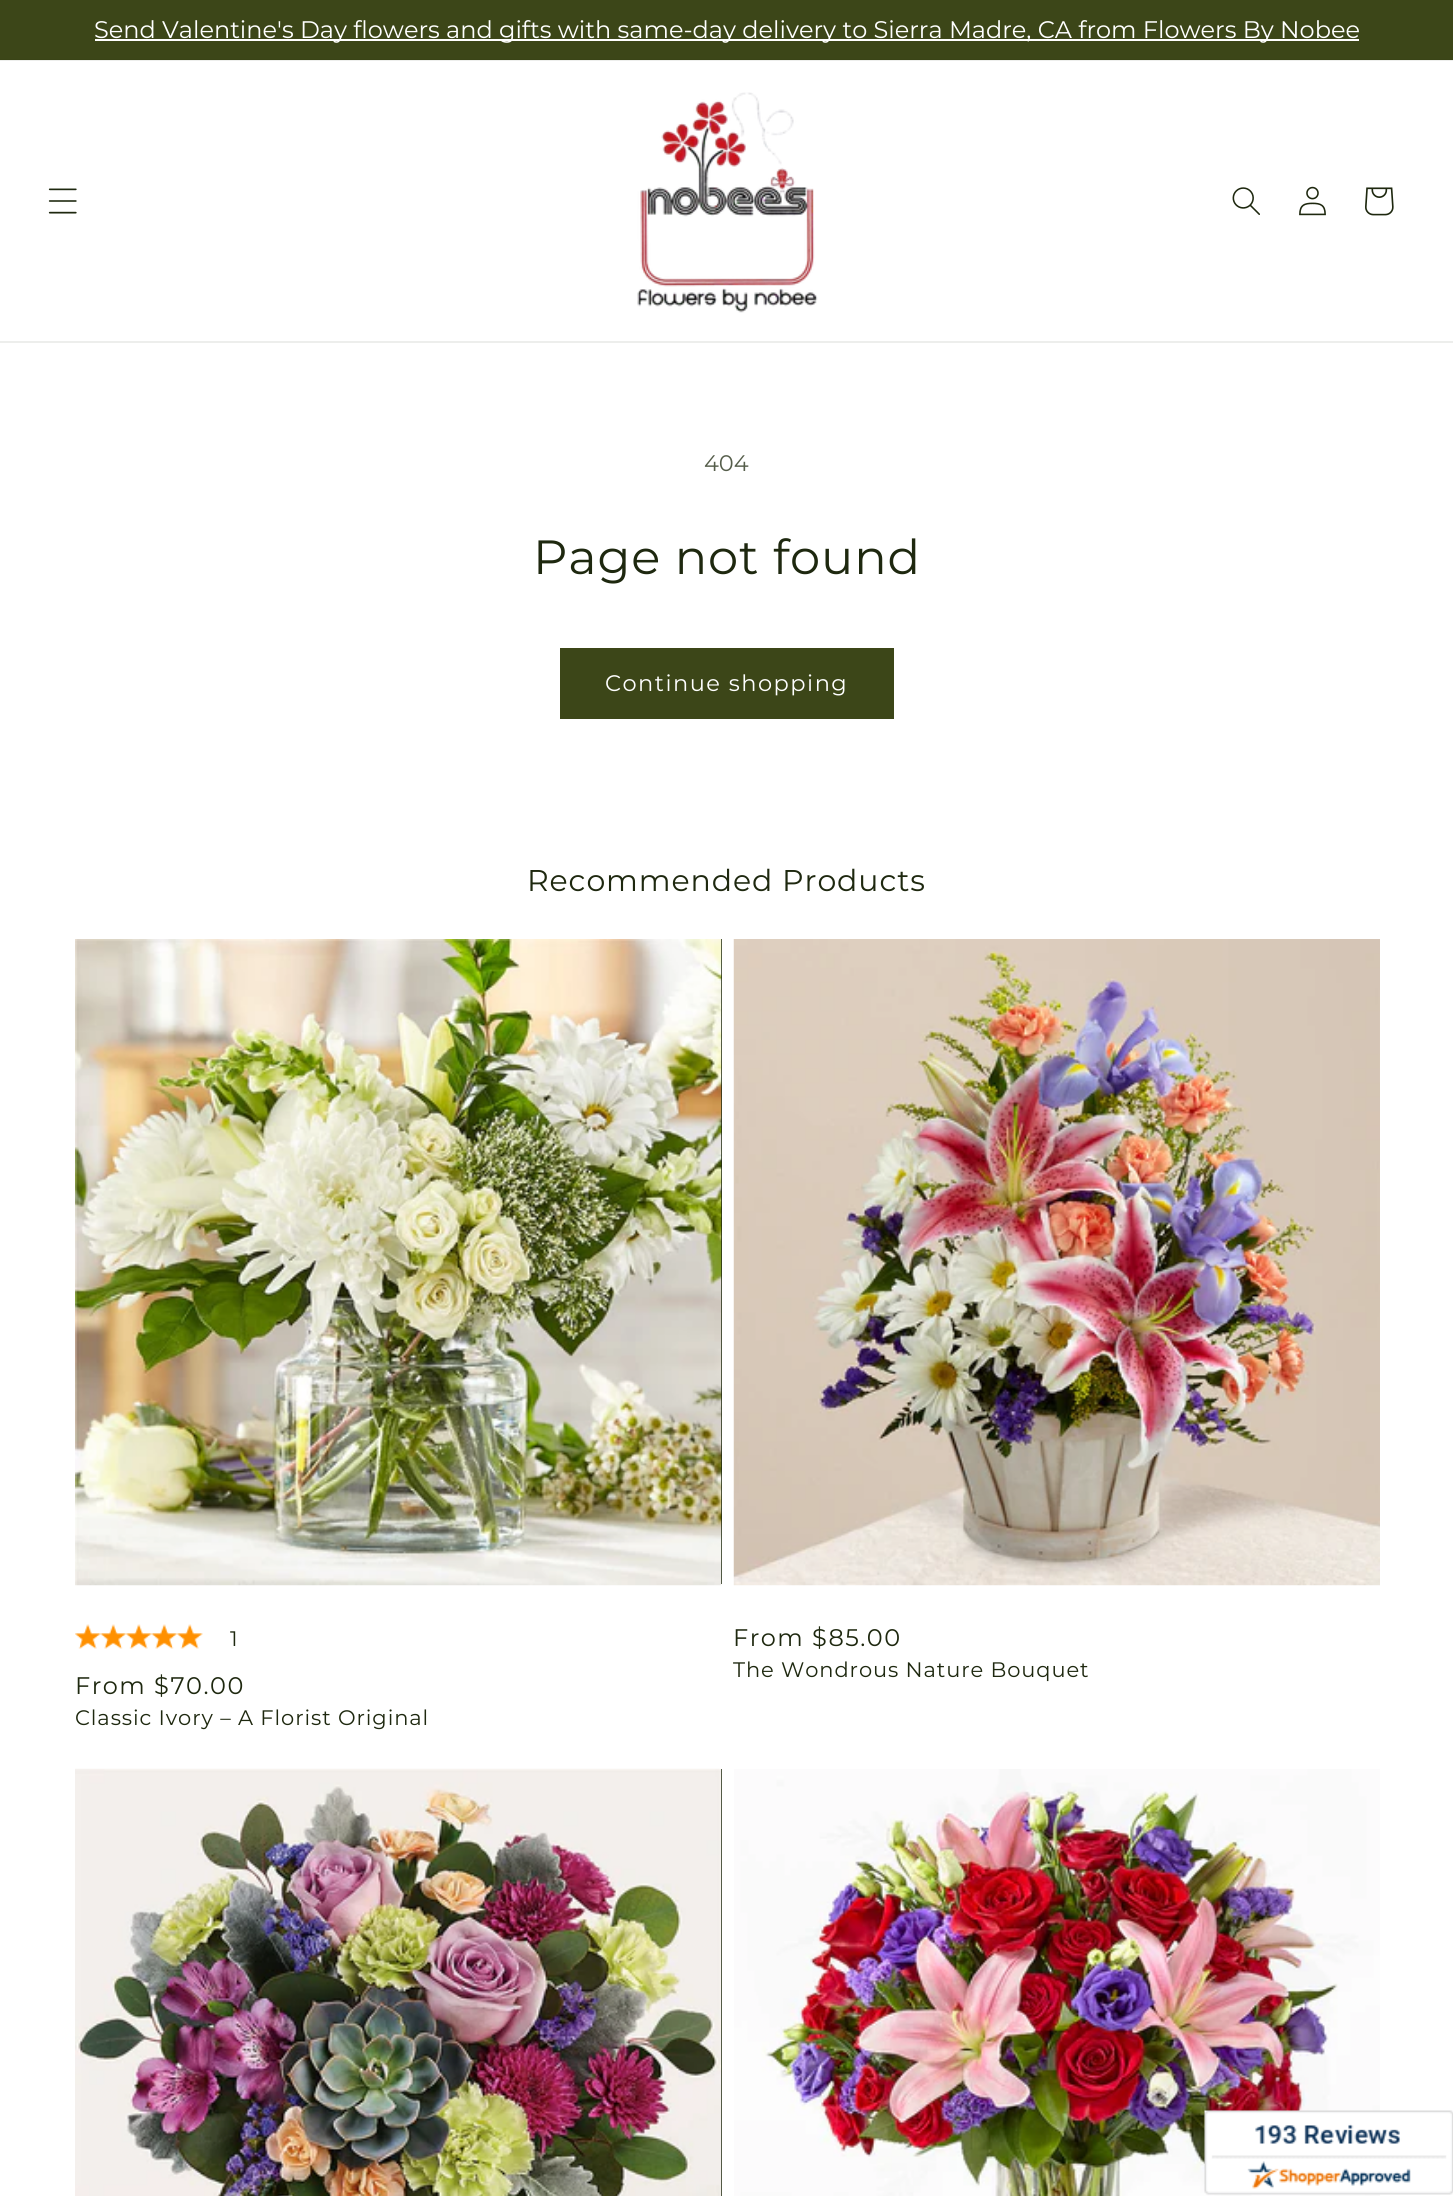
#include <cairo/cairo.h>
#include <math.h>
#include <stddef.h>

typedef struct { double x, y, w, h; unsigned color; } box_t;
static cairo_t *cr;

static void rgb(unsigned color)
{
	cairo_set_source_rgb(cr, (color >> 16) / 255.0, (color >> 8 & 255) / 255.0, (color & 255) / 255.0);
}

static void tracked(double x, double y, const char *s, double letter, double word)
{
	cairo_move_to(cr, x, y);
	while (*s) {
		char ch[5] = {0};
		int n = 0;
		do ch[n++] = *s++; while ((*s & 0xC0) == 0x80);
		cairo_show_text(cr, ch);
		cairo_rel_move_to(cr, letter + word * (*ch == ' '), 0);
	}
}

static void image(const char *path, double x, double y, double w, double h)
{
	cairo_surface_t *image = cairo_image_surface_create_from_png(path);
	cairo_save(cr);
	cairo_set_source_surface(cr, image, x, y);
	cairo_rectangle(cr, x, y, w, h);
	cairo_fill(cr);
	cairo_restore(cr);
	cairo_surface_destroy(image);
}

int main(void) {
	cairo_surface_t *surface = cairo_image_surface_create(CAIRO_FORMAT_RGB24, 1453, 2196);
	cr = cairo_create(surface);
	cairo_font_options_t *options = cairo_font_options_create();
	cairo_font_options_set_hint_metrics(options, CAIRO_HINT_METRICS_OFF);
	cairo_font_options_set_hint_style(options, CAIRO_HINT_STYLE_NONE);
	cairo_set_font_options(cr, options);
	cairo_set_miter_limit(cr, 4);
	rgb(0xffffff);
	cairo_paint(cr);
	{
		static const box_t items[] = {
			{0, 60, 1453, 1, 0xedeeec},
			{0, 0, 1453, 59, 0x3c4618},
			{0, 59, 1453, 1, 0x3a4417},
			{95, 39, 1264, 2, 0xffffff},
			{0, 341, 1453, 2, 0xedeeec},
		};
		for (size_t i = 0; i < sizeof items / sizeof *items; i++) {
			rgb(items[i].color);
			cairo_rectangle(cr, items[i].x, items[i].y, items[i].w, items[i].h);
			cairo_fill(cr);
		}
	}
	image("img/1.png", 48, 188, 29, 26);
	image("img/2.png", 637, 92, 181, 221);
	image("img/3.png", 1232, 187, 28, 28);
	image("img/4.png", 1299, 186, 27, 30);
	image("img/5.png", 1365, 187, 29, 29);
	rgb(0x3c4618);
	cairo_rectangle(cr, 560, 648, 334, 71);
	cairo_fill(cr);
	rgb(0x1e280f);
	cairo_rectangle(cr, 721, 939, 1, 645);
	cairo_fill(cr);
	image("img/6.png", 75, 939, 647, 647);
	image("img/7.png", 75, 1624, 26, 25);
	image("img/8.png", 100, 1624, 26, 25);
	image("img/7.png", 126, 1624, 26, 25);
	image("img/8.png", 151, 1624, 26, 25);
	image("img/7.png", 177, 1624, 26, 25);
	image("img/9.png", 733, 939, 647, 647);
	cairo_rectangle(cr, 721, 1769, 1, 427);
	cairo_fill(cr);
	image("img/10.png", 75, 1768, 647, 428);
	image("img/11.png", 734, 1769, 646, 427);
	image("img/12.png", 1204, 2110, 249, 85);
	cairo_select_font_face(cr, "Montserrat", CAIRO_FONT_SLANT_NORMAL, CAIRO_FONT_WEIGHT_NORMAL);
	cairo_set_font_size(cr, 24);
	rgb(0xffffff);
	cairo_move_to(cr, 94, 38);
	cairo_show_text(cr, "Send Valentine's Day flowers and gifts with same-day delivery to Sierra Madre, CA from Flowers By Nobee");
	cairo_set_font_size(cr, 22.5);
	rgb(0x565e4b);
	cairo_move_to(cr, 704, 471);
	cairo_show_text(cr, "404");
	cairo_set_font_size(cr, 48);
	rgb(0x1e280f);
	tracked(533, 574, "Page not found", 0.9, 0);
	cairo_set_font_size(cr, 22.5);
	rgb(0xffffff);
	tracked(605, 691, "Continue shopping", 1.5, 0);
	cairo_set_font_size(cr, 30);
	rgb(0x1e280f);
	tracked(527, 891, "Recommended Products", 0.9, 0);
	cairo_set_font_size(cr, 21);
	cairo_move_to(cr, 230, 1646);
	cairo_show_text(cr, "1");
	cairo_set_font_size(cr, 24);
	tracked(75, 1694, "From $70.00", 1.5, 0);
	cairo_set_font_size(cr, 21);
	tracked(75, 1725, "Classic Ivory – A Florist Original", 0.9, 0);
	cairo_set_font_size(cr, 24);
	tracked(733, 1646, "From $85.00", 1.5, 0);
	cairo_set_font_size(cr, 21);
	tracked(733, 1677, "The Wondrous Nature Bouquet", 0.9, 0);
	cairo_surface_write_to_png(surface, "page.png");
	cairo_font_options_destroy(options);
	cairo_destroy(cr);
	cairo_surface_destroy(surface);
	return 0;
}
